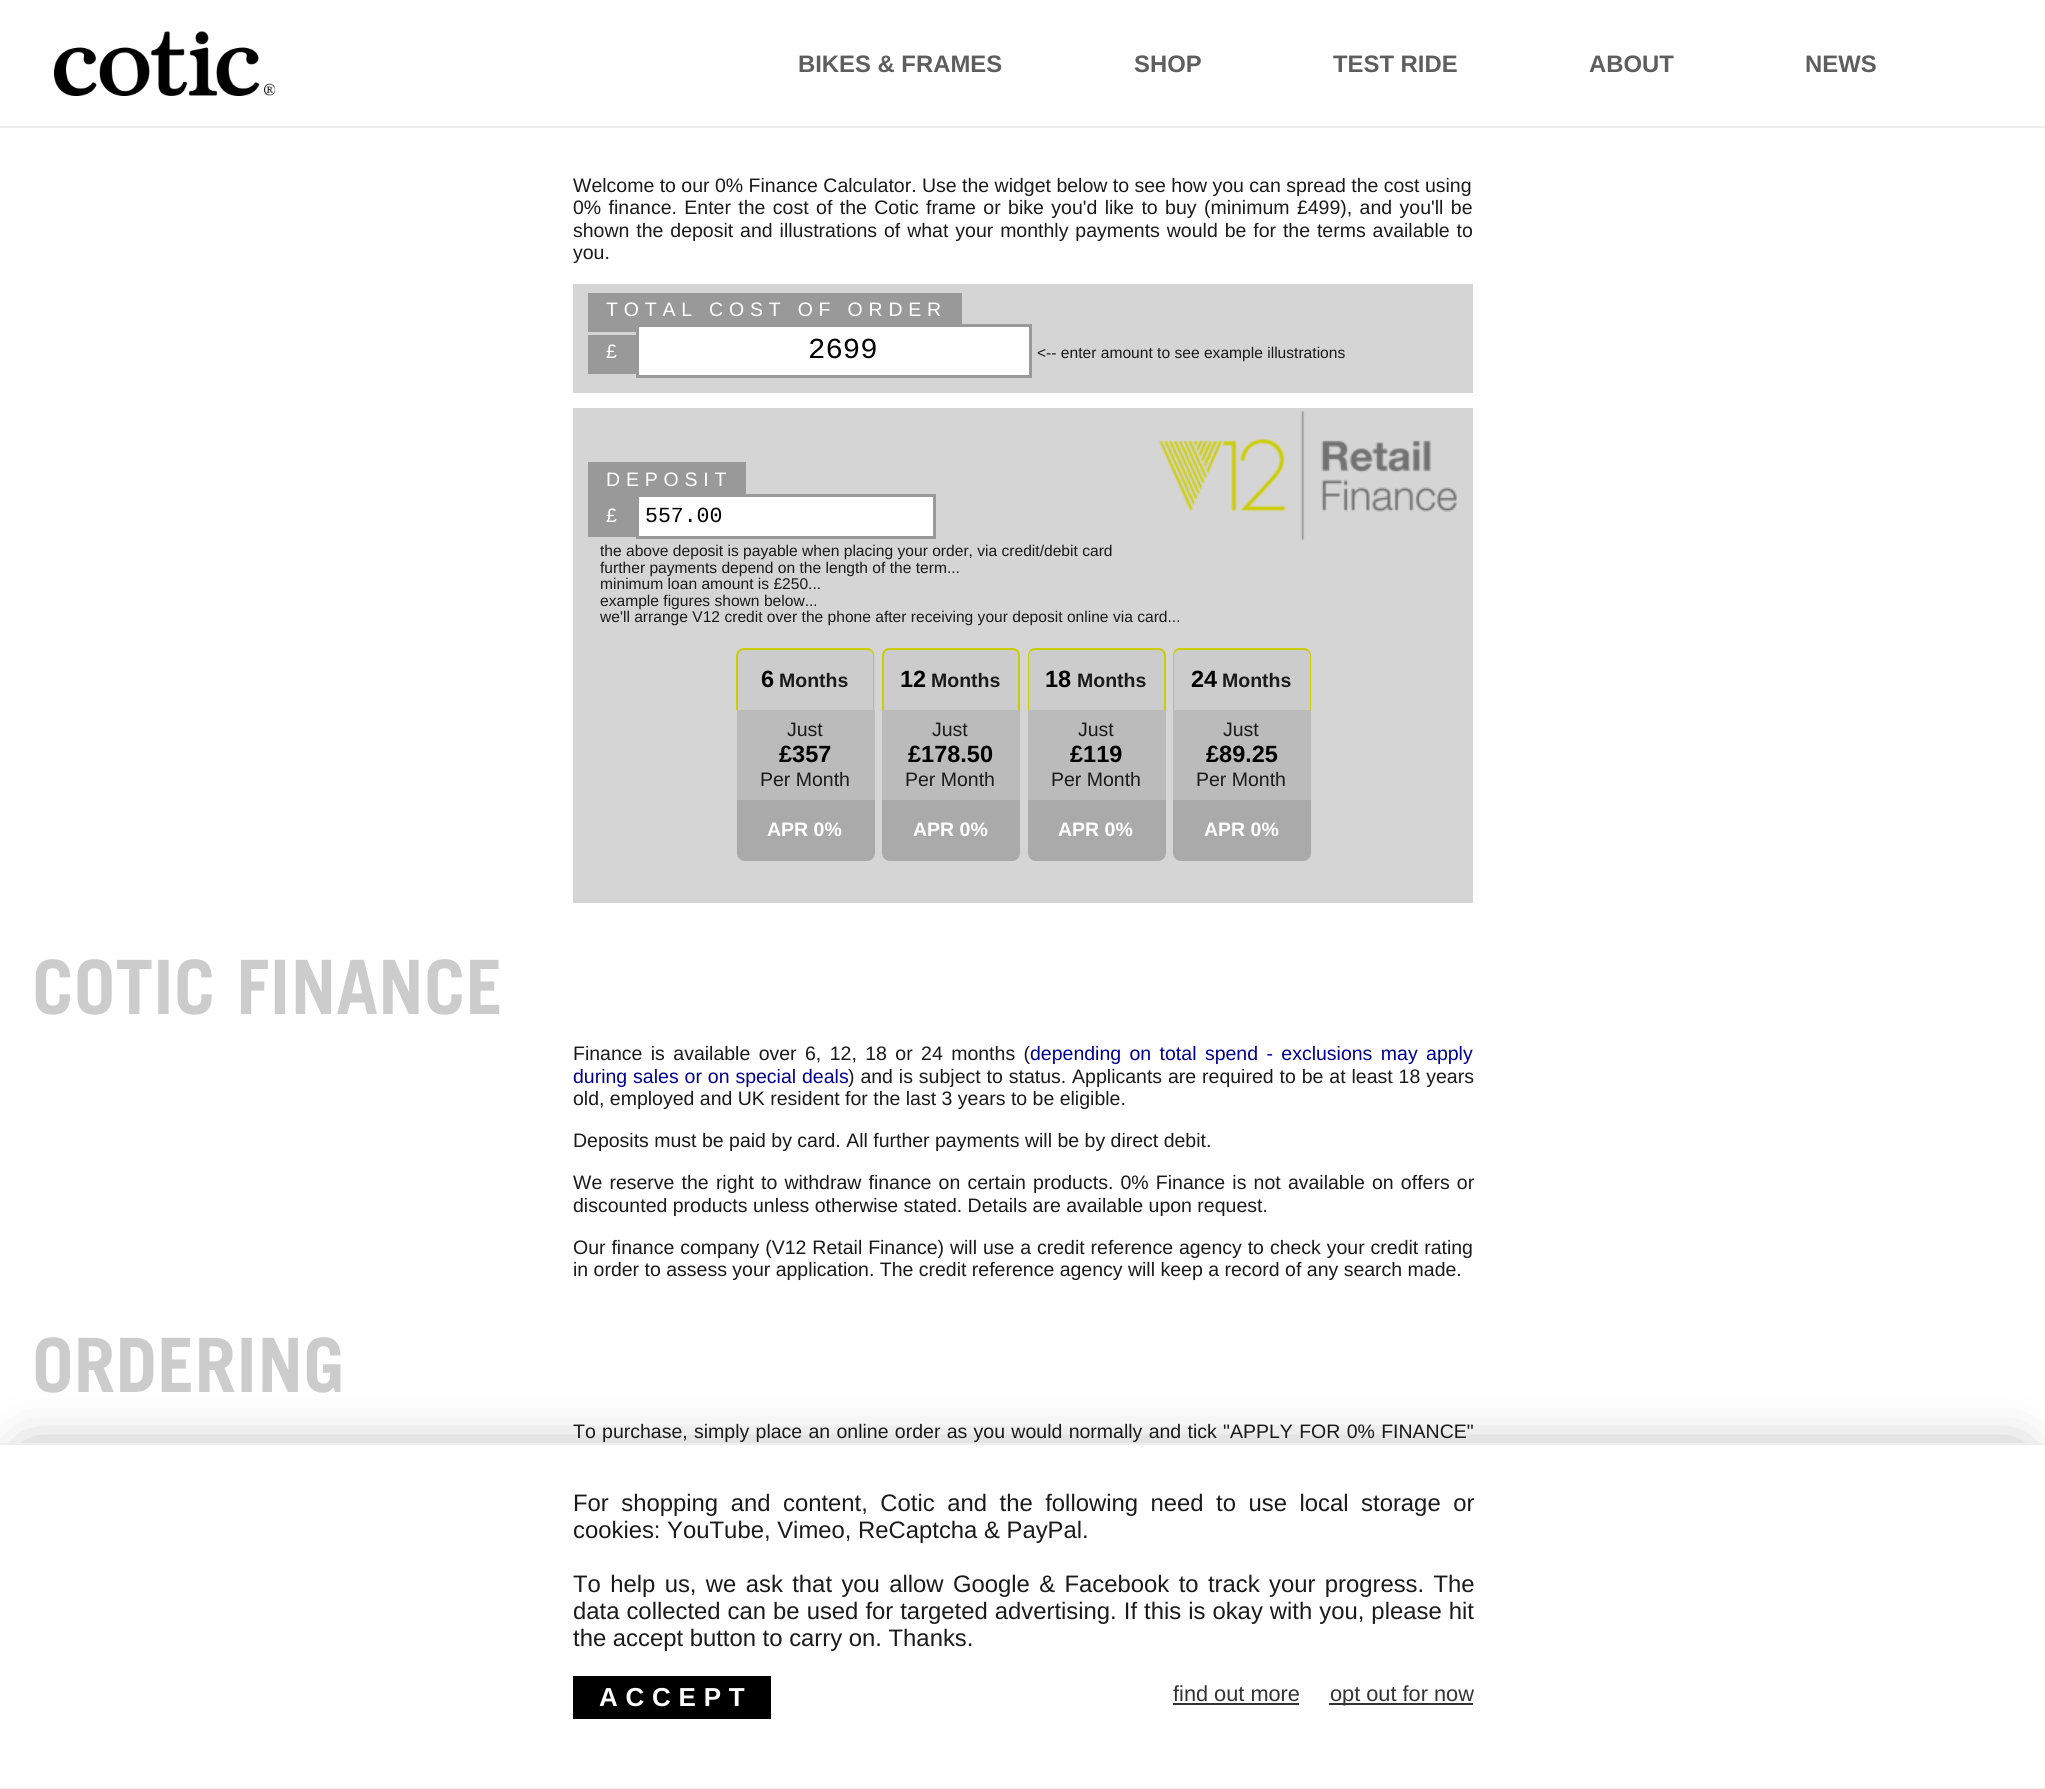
#include <cairo/cairo.h>
#include <math.h>
#include <stddef.h>

typedef struct { double x, y; const char *s; } line_t;
typedef struct { double x, y, w, h; unsigned color; } box_t;
static cairo_t *cr;

static void rgb(unsigned color)
{
	cairo_set_source_rgb(cr, (color >> 16) / 255.0, (color >> 8 & 255) / 255.0, (color & 255) / 255.0);
}

static void tracked(double x, double y, const char *s, double letter, double word)
{
	cairo_move_to(cr, x, y);
	while (*s) {
		char ch[5] = {0};
		int n = 0;
		do ch[n++] = *s++; while ((*s & 0xC0) == 0x80);
		cairo_show_text(cr, ch);
		cairo_rel_move_to(cr, letter + word * (*ch == ' '), 0);
	}
}

static void rrect(double x, double y, double w, double h, double r)
{
	cairo_new_sub_path(cr);
	cairo_arc(cr, x + w - r, y + h - r, r, 0, M_PI / 2);
	cairo_arc(cr, x + r, y + h - r, r, M_PI / 2, M_PI);
	cairo_arc(cr, x + r, y + r, r, M_PI, 1.5 * M_PI);
	cairo_arc(cr, x + w - r, y + r, r, 1.5 * M_PI, 2 * M_PI);
	cairo_close_path(cr);
}

static void soft_shadow(double x, double y, double w, double h, double r, double blur, double alpha)
{
	cairo_push_group_with_content(cr, CAIRO_CONTENT_ALPHA);
	cairo_set_operator(cr, CAIRO_OPERATOR_SOURCE);
	for (int i = 15; i >= -15 && fmin(w, h) + blur * i / 3 > 0; i -= 2) {
		double e = blur * i / 6;
		cairo_set_source_rgba(cr, 0, 0, 0, alpha * erfc((i - 1) / 8.5) / 2);
		rrect(x - e, y - e, w + 2 * e, h + 2 * e, fmax(0, fmin(r + e + blur * .6, fmin(w, h) / 2 + e)));
		cairo_fill(cr);
	}
	cairo_pattern_t *soft = cairo_pop_group(cr);
	cairo_mask(cr, soft);
	cairo_pattern_destroy(soft);
}

static void image(const char *path, double x, double y, double w, double h)
{
	cairo_surface_t *image = cairo_image_surface_create_from_png(path);
	cairo_save(cr);
	cairo_set_source_surface(cr, image, x, y);
	cairo_rectangle(cr, x, y, w, h);
	cairo_fill(cr);
	cairo_restore(cr);
	cairo_surface_destroy(image);
}

int main(void) {
	cairo_surface_t *surface = cairo_image_surface_create(CAIRO_FORMAT_RGB24, 2045, 1789);
	cr = cairo_create(surface);
	cairo_font_options_t *options = cairo_font_options_create();
	cairo_font_options_set_hint_metrics(options, CAIRO_HINT_METRICS_OFF);
	cairo_font_options_set_hint_style(options, CAIRO_HINT_STYLE_NONE);
	cairo_set_font_options(cr, options);
	cairo_set_miter_limit(cr, 4);
	rgb(0xffffff);
	cairo_paint(cr);
	rgb(0xeeeeee);
	cairo_rectangle(cr, 0, 126, 2045, 2);
	cairo_fill(cr);
	image("img/1.png", 54, 31, 222, 65);
	{
		static const box_t items[] = {
			{573, 284, 900, 109, 0xd5d5d5},
			{588, 293, 374, 39, 0x999999},
			{588, 335, 48, 39, 0x999999},
		};
		for (size_t i = 0; i < sizeof items / sizeof *items; i++) {
			rgb(items[i].color);
			cairo_rectangle(cr, items[i].x, items[i].y, items[i].w, items[i].h);
			cairo_fill(cr);
		}
	}
	rgb(0xffffff);
	cairo_rectangle(cr, 637.5, 325.5, 393, 51);
	cairo_fill_preserve(cr);
	rgb(0x999999);
	cairo_set_line_width(cr, 3);
	cairo_stroke(cr);
	rgb(0xd5d5d5);
	cairo_rectangle(cr, 573, 408, 900, 495);
	cairo_fill(cr);
	image("img/2.png", 1159, 410, 298, 131);
	rgb(0x999999);
	cairo_rectangle(cr, 588, 462, 158, 36);
	cairo_fill(cr);
	cairo_rectangle(cr, 588, 498, 48, 39);
	cairo_fill(cr);
	rgb(0xffffff);
	cairo_rectangle(cr, 637.5, 495.5, 297, 42);
	cairo_fill_preserve(cr);
	rgb(0x999999);
	cairo_stroke(cr);
	rgb(0xcccccc);
	cairo_new_path(cr);
	cairo_move_to(cr, 745, 648);
	cairo_line_to(cr, 867, 648);
	cairo_curve_to(cr, 871.5, 648, 875, 651.5, 875, 656);
	cairo_line_to(cr, 875, 710);
	cairo_line_to(cr, 737, 710);
	cairo_line_to(cr, 737, 656);
	cairo_curve_to(cr, 737, 651.5, 740.5, 648, 745, 648);
	cairo_close_path(cr);
	cairo_fill(cr);
	rgb(0xcccd00);
	cairo_set_fill_rule(cr, CAIRO_FILL_RULE_EVEN_ODD);
	cairo_new_path(cr);
	cairo_move_to(cr, 744, 648);
	cairo_line_to(cr, 867, 648);
	cairo_curve_to(cr, 871, 648, 874, 651, 874, 656);
	cairo_line_to(cr, 874, 710);
	cairo_line_to(cr, 736, 710);
	cairo_line_to(cr, 736, 656);
	cairo_curve_to(cr, 736, 651, 740, 648, 744, 648);
	cairo_close_path(cr);
	cairo_move_to(cr, 744, 650);
	cairo_line_to(cr, 867, 650);
	cairo_curve_to(cr, 870, 650, 873, 652, 873, 656);
	cairo_line_to(cr, 873, 710);
	cairo_line_to(cr, 738, 710);
	cairo_line_to(cr, 738, 656);
	cairo_curve_to(cr, 738, 652, 741, 650, 744, 650);
	cairo_close_path(cr);
	cairo_fill(cr);
	rgb(0xcccccc);
	cairo_new_path(cr);
	cairo_move_to(cr, 890, 648);
	cairo_line_to(cr, 1012, 648);
	cairo_curve_to(cr, 1016.5, 648, 1020, 651.5, 1020, 656);
	cairo_line_to(cr, 1020, 710);
	cairo_line_to(cr, 882, 710);
	cairo_line_to(cr, 882, 656);
	cairo_curve_to(cr, 882, 651.5, 885.5, 648, 890, 648);
	cairo_close_path(cr);
	cairo_fill(cr);
	rgb(0xcccd00);
	cairo_new_path(cr);
	cairo_move_to(cr, 890, 648);
	cairo_line_to(cr, 1012, 648);
	cairo_curve_to(cr, 1017, 648, 1020, 651, 1020, 656);
	cairo_line_to(cr, 1020, 710);
	cairo_line_to(cr, 882, 710);
	cairo_line_to(cr, 882, 656);
	cairo_curve_to(cr, 882, 651, 885, 648, 890, 648);
	cairo_close_path(cr);
	cairo_move_to(cr, 890, 650);
	cairo_line_to(cr, 1012, 650);
	cairo_curve_to(cr, 1016, 650, 1018, 652, 1018, 656);
	cairo_line_to(cr, 1018, 710);
	cairo_line_to(cr, 884, 710);
	cairo_line_to(cr, 884, 656);
	cairo_curve_to(cr, 884, 652, 886, 650, 890, 650);
	cairo_close_path(cr);
	cairo_fill(cr);
	rgb(0xcccccc);
	cairo_new_path(cr);
	cairo_move_to(cr, 1036, 648);
	cairo_line_to(cr, 1158, 648);
	cairo_curve_to(cr, 1162.5, 648, 1166, 651.5, 1166, 656);
	cairo_line_to(cr, 1166, 710);
	cairo_line_to(cr, 1028, 710);
	cairo_line_to(cr, 1028, 656);
	cairo_curve_to(cr, 1028, 651.5, 1031.5, 648, 1036, 648);
	cairo_close_path(cr);
	cairo_fill(cr);
	rgb(0xcccd00);
	cairo_new_path(cr);
	cairo_move_to(cr, 1035, 648);
	cairo_line_to(cr, 1158, 648);
	cairo_curve_to(cr, 1162, 648, 1166, 651, 1166, 656);
	cairo_line_to(cr, 1166, 710);
	cairo_line_to(cr, 1028, 710);
	cairo_line_to(cr, 1028, 656);
	cairo_curve_to(cr, 1028, 651, 1031, 648, 1035, 648);
	cairo_close_path(cr);
	cairo_move_to(cr, 1035, 650);
	cairo_line_to(cr, 1158, 650);
	cairo_curve_to(cr, 1161, 650, 1164, 652, 1164, 656);
	cairo_line_to(cr, 1164, 710);
	cairo_line_to(cr, 1029, 710);
	cairo_line_to(cr, 1029, 656);
	cairo_curve_to(cr, 1029, 652, 1032, 650, 1035, 650);
	cairo_close_path(cr);
	cairo_fill(cr);
	rgb(0xcccccc);
	cairo_new_path(cr);
	cairo_move_to(cr, 1181, 648);
	cairo_line_to(cr, 1303, 648);
	cairo_curve_to(cr, 1307.5, 648, 1311, 651.5, 1311, 656);
	cairo_line_to(cr, 1311, 710);
	cairo_line_to(cr, 1173, 710);
	cairo_line_to(cr, 1173, 656);
	cairo_curve_to(cr, 1173, 651.5, 1176.5, 648, 1181, 648);
	cairo_close_path(cr);
	cairo_fill(cr);
	rgb(0xcccd00);
	cairo_new_path(cr);
	cairo_move_to(cr, 1180, 648);
	cairo_line_to(cr, 1304, 648);
	cairo_curve_to(cr, 1308, 648, 1311, 651, 1311, 656);
	cairo_line_to(cr, 1311, 710);
	cairo_line_to(cr, 1173, 710);
	cairo_line_to(cr, 1173, 656);
	cairo_curve_to(cr, 1173, 651, 1176, 648, 1180, 648);
	cairo_close_path(cr);
	cairo_move_to(cr, 1180, 650);
	cairo_line_to(cr, 1304, 650);
	cairo_curve_to(cr, 1307, 650, 1310, 652, 1310, 656);
	cairo_line_to(cr, 1310, 710);
	cairo_line_to(cr, 1174, 710);
	cairo_line_to(cr, 1174, 656);
	cairo_curve_to(cr, 1174, 652, 1177, 650, 1180, 650);
	cairo_close_path(cr);
	cairo_fill(cr);
	{
		static const box_t items[] = {
			{737, 710, 138, 90, 0xbbbbbb},
			{882, 710, 138, 90, 0xbbbbbb},
			{1028, 710, 138, 90, 0xbbbbbb},
			{1173, 710, 138, 90, 0xbbbbbb},
		};
		for (size_t i = 0; i < sizeof items / sizeof *items; i++) {
			rgb(items[i].color);
			cairo_rectangle(cr, items[i].x, items[i].y, items[i].w, items[i].h);
			cairo_fill(cr);
		}
	}
	rgb(0xaaaaaa);
	cairo_new_path(cr);
	cairo_move_to(cr, 737, 800);
	cairo_line_to(cr, 875, 800);
	cairo_line_to(cr, 875, 853);
	cairo_curve_to(cr, 875, 857.5, 871.5, 861, 867, 861);
	cairo_line_to(cr, 745, 861);
	cairo_curve_to(cr, 740.5, 861, 737, 857.5, 737, 853);
	cairo_close_path(cr);
	cairo_fill(cr);
	cairo_new_path(cr);
	cairo_move_to(cr, 882, 800);
	cairo_line_to(cr, 1020, 800);
	cairo_line_to(cr, 1020, 853);
	cairo_curve_to(cr, 1020, 857.5, 1016.5, 861, 1012, 861);
	cairo_line_to(cr, 890, 861);
	cairo_curve_to(cr, 885.5, 861, 882, 857.5, 882, 853);
	cairo_close_path(cr);
	cairo_fill(cr);
	cairo_new_path(cr);
	cairo_move_to(cr, 1028, 800);
	cairo_line_to(cr, 1166, 800);
	cairo_line_to(cr, 1166, 853);
	cairo_curve_to(cr, 1166, 857.5, 1162.5, 861, 1158, 861);
	cairo_line_to(cr, 1036, 861);
	cairo_curve_to(cr, 1031.5, 861, 1028, 857.5, 1028, 853);
	cairo_close_path(cr);
	cairo_fill(cr);
	cairo_new_path(cr);
	cairo_move_to(cr, 1173, 800);
	cairo_line_to(cr, 1311, 800);
	cairo_line_to(cr, 1311, 853);
	cairo_curve_to(cr, 1311, 857.5, 1307.5, 861, 1303, 861);
	cairo_line_to(cr, 1181, 861);
	cairo_curve_to(cr, 1176.5, 861, 1173, 857.5, 1173, 853);
	cairo_close_path(cr);
	cairo_fill(cr);
	rgb(0x000000);
	soft_shadow(29, 1457, 1989, 289, 0, 27, 0.42);
	{
		static const box_t items[] = {
			{0, 1445, 2045, 343, 0xffffff},
			{0, 1443, 2045, 2, 0xeeeeee},
			{0, 1788, 2045, 1, 0xeeeeee},
			{573, 1676, 198, 43, 0x000000},
			{1173, 1703, 126, 2, 0x333333},
			{1329, 1703, 144, 2, 0x333333},
		};
		for (size_t i = 0; i < sizeof items / sizeof *items; i++) {
			rgb(items[i].color);
			cairo_rectangle(cr, items[i].x, items[i].y, items[i].w, items[i].h);
			cairo_fill(cr);
		}
	}
	cairo_select_font_face(cr, "Liberation Sans", CAIRO_FONT_SLANT_NORMAL, CAIRO_FONT_WEIGHT_BOLD);
	cairo_set_font_size(cr, 23.85);
	rgb(0x5e5e5e);
	{
		static const line_t items[] = {
			{798, 72, "BIKES & FRAMES"},
			{1134, 72, "SHOP"},
			{1333, 72, "TEST RIDE"},
			{1589, 72, "ABOUT"},
			{1805, 72, "NEWS"},
		};
		for (size_t i = 0; i < sizeof items / sizeof *items; i++) {
			cairo_move_to(cr, items[i].x, items[i].y);
			cairo_show_text(cr, items[i].s);
		}
	}
	cairo_select_font_face(cr, "Liberation Sans", CAIRO_FONT_SLANT_NORMAL, CAIRO_FONT_WEIGHT_NORMAL);
	cairo_set_font_size(cr, 19.5);
	rgb(0x1a1a1a);
	cairo_move_to(cr, 573, 192);
	cairo_show_text(cr, "Welcome to our 0% Finance Calculator. Use the widget below to see how you can spread the cost using");
	tracked(573, 214, "0% finance. Enter the cost of the Cotic frame or bike you'd like to buy (minimum £499), and you'll be", 0, 2);
	tracked(573, 237, "shown the deposit and illustrations of what your monthly payments would be for the terms available to", 0, 1.5);
	cairo_move_to(cr, 573, 259);
	cairo_show_text(cr, "you.");
	rgb(0xffffff);
	tracked(606, 316, "TOTAL COST OF ORDER", 5.8, 0);
	tracked(606, 358, "£", 5.8, 0);
	cairo_select_font_face(cr, "Liberation Mono", CAIRO_FONT_SLANT_NORMAL, CAIRO_FONT_WEIGHT_NORMAL);
	cairo_set_font_size(cr, 29);
	rgb(0x000000);
	cairo_move_to(cr, 808, 358);
	cairo_show_text(cr, "2699");
	cairo_select_font_face(cr, "Liberation Sans", CAIRO_FONT_SLANT_NORMAL, CAIRO_FONT_WEIGHT_NORMAL);
	cairo_set_font_size(cr, 15.6);
	rgb(0x1a1a1a);
	cairo_move_to(cr, 1037, 358);
	cairo_show_text(cr, "<-- enter amount to see example illustrations");
	cairo_set_font_size(cr, 19.5);
	rgb(0xffffff);
	tracked(606, 486, "DEPOSIT", 5.8, 0);
	tracked(606, 522, "£", 5.8, 0);
	cairo_select_font_face(cr, "Liberation Mono", CAIRO_FONT_SLANT_NORMAL, CAIRO_FONT_WEIGHT_NORMAL);
	cairo_set_font_size(cr, 21.5);
	rgb(0x000000);
	cairo_move_to(cr, 645, 522);
	cairo_show_text(cr, "557.00");
	cairo_select_font_face(cr, "Liberation Sans", CAIRO_FONT_SLANT_NORMAL, CAIRO_FONT_WEIGHT_NORMAL);
	cairo_set_font_size(cr, 15.6);
	rgb(0x1a1a1a);
	{
		static const line_t items[] = {
			{600, 556, "the above deposit is payable when placing your order, via credit/debit card"},
			{600, 573, "further payments depend on the length of the term..."},
			{600, 589, "minimum loan amount is £250..."},
			{600, 606, "example figures shown below..."},
			{600, 622, "we'll arrange V12 credit over the phone after receiving your deposit online via card..."},
		};
		for (size_t i = 0; i < sizeof items / sizeof *items; i++) {
			cairo_move_to(cr, items[i].x, items[i].y);
			cairo_show_text(cr, items[i].s);
		}
	}
	cairo_select_font_face(cr, "Liberation Sans", CAIRO_FONT_SLANT_NORMAL, CAIRO_FONT_WEIGHT_BOLD);
	cairo_set_font_size(cr, 23.5);
	rgb(0x000000);
	cairo_move_to(cr, 761, 687);
	cairo_show_text(cr, "6");
	cairo_set_font_size(cr, 19.5);
	rgb(0x1a1a1a);
	cairo_move_to(cr, 779, 687);
	cairo_show_text(cr, "Months");
	cairo_set_font_size(cr, 23.5);
	rgb(0x000000);
	cairo_move_to(cr, 900, 687);
	cairo_show_text(cr, "12");
	cairo_set_font_size(cr, 19.5);
	rgb(0x1a1a1a);
	cairo_move_to(cr, 931, 687);
	cairo_show_text(cr, "Months");
	cairo_set_font_size(cr, 23.5);
	rgb(0x000000);
	cairo_move_to(cr, 1045, 687);
	cairo_show_text(cr, "18");
	cairo_set_font_size(cr, 19.5);
	rgb(0x1a1a1a);
	cairo_move_to(cr, 1077, 687);
	cairo_show_text(cr, "Months");
	cairo_set_font_size(cr, 23.5);
	rgb(0x000000);
	cairo_move_to(cr, 1191, 687);
	cairo_show_text(cr, "24");
	cairo_set_font_size(cr, 19.5);
	rgb(0x1a1a1a);
	cairo_move_to(cr, 1222, 687);
	cairo_show_text(cr, "Months");
	cairo_select_font_face(cr, "Liberation Sans", CAIRO_FONT_SLANT_NORMAL, CAIRO_FONT_WEIGHT_NORMAL);
	cairo_move_to(cr, 787, 736);
	cairo_show_text(cr, "Just");
	cairo_select_font_face(cr, "Liberation Sans", CAIRO_FONT_SLANT_NORMAL, CAIRO_FONT_WEIGHT_BOLD);
	cairo_set_font_size(cr, 23.5);
	rgb(0x000000);
	cairo_move_to(cr, 779, 762);
	cairo_show_text(cr, "£357");
	cairo_select_font_face(cr, "Liberation Sans", CAIRO_FONT_SLANT_NORMAL, CAIRO_FONT_WEIGHT_NORMAL);
	cairo_set_font_size(cr, 19.5);
	rgb(0x1a1a1a);
	cairo_move_to(cr, 760, 786);
	cairo_show_text(cr, "Per Month");
	cairo_move_to(cr, 932, 736);
	cairo_show_text(cr, "Just");
	cairo_select_font_face(cr, "Liberation Sans", CAIRO_FONT_SLANT_NORMAL, CAIRO_FONT_WEIGHT_BOLD);
	cairo_set_font_size(cr, 23.5);
	rgb(0x000000);
	cairo_move_to(cr, 908, 762);
	cairo_show_text(cr, "£178.50");
	cairo_select_font_face(cr, "Liberation Sans", CAIRO_FONT_SLANT_NORMAL, CAIRO_FONT_WEIGHT_NORMAL);
	cairo_set_font_size(cr, 19.5);
	rgb(0x1a1a1a);
	cairo_move_to(cr, 905, 786);
	cairo_show_text(cr, "Per Month");
	cairo_move_to(cr, 1078, 736);
	cairo_show_text(cr, "Just");
	cairo_select_font_face(cr, "Liberation Sans", CAIRO_FONT_SLANT_NORMAL, CAIRO_FONT_WEIGHT_BOLD);
	cairo_set_font_size(cr, 23.5);
	rgb(0x000000);
	cairo_move_to(cr, 1070, 762);
	cairo_show_text(cr, "£119");
	cairo_select_font_face(cr, "Liberation Sans", CAIRO_FONT_SLANT_NORMAL, CAIRO_FONT_WEIGHT_NORMAL);
	cairo_set_font_size(cr, 19.5);
	rgb(0x1a1a1a);
	cairo_move_to(cr, 1051, 786);
	cairo_show_text(cr, "Per Month");
	cairo_move_to(cr, 1223, 736);
	cairo_show_text(cr, "Just");
	cairo_select_font_face(cr, "Liberation Sans", CAIRO_FONT_SLANT_NORMAL, CAIRO_FONT_WEIGHT_BOLD);
	cairo_set_font_size(cr, 23.5);
	rgb(0x000000);
	cairo_move_to(cr, 1206, 762);
	cairo_show_text(cr, "£89.25");
	cairo_select_font_face(cr, "Liberation Sans", CAIRO_FONT_SLANT_NORMAL, CAIRO_FONT_WEIGHT_NORMAL);
	cairo_set_font_size(cr, 19.5);
	rgb(0x1a1a1a);
	cairo_move_to(cr, 1196, 786);
	cairo_show_text(cr, "Per Month");
	cairo_select_font_face(cr, "Liberation Sans", CAIRO_FONT_SLANT_NORMAL, CAIRO_FONT_WEIGHT_BOLD);
	rgb(0xffffff);
	{
		static const line_t items[] = {
			{767, 836, "APR 0%"},
			{913, 836, "APR 0%"},
			{1058, 836, "APR 0%"},
			{1204, 836, "APR 0%"},
		};
		for (size_t i = 0; i < sizeof items / sizeof *items; i++) {
			cairo_move_to(cr, items[i].x, items[i].y);
			cairo_show_text(cr, items[i].s);
		}
	}
	cairo_select_font_face(cr, "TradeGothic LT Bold", CAIRO_FONT_SLANT_NORMAL, CAIRO_FONT_WEIGHT_BOLD);
	cairo_set_font_size(cr, 75);
	rgb(0xcccccc);
	cairo_move_to(cr, 32, 1014);
	cairo_show_text(cr, "COTIC FINANCE");
	cairo_select_font_face(cr, "Liberation Sans", CAIRO_FONT_SLANT_NORMAL, CAIRO_FONT_WEIGHT_NORMAL);
	cairo_set_font_size(cr, 19.5);
	rgb(0x1a1a1a);
	tracked(573, 1060, "Finance is available over 6, 12, 18 or 24 months (", 0, 3);
	rgb(0x000090);
	tracked(1030, 1060, "depending on total spend - exclusions may apply", 0, 3);
	tracked(573, 1083, "during sales or on special deals", 0, 0.5);
	rgb(0x1a1a1a);
	tracked(848, 1083, ") and is subject to status. Applicants are required to be at least 18 years", 0, 0.5);
	cairo_move_to(cr, 573, 1105);
	cairo_show_text(cr, "old, employed and UK resident for the last 3 years to be eligible.");
	cairo_move_to(cr, 573, 1147);
	cairo_show_text(cr, "Deposits must be paid by card. All further payments will be by direct debit.");
	tracked(573, 1189, "We reserve the right to withdraw finance on certain products. 0% Finance is not available on offers or", 0, 1.75);
	cairo_move_to(cr, 573, 1212);
	cairo_show_text(cr, "discounted products unless otherwise stated. Details are available upon request.");
	tracked(573, 1254, "Our finance company (V12 Retail Finance) will use a credit reference agency to check your credit rating", 0, 0.5);
	cairo_move_to(cr, 573, 1276);
	cairo_show_text(cr, "in order to assess your application. The credit reference agency will keep a record of any search made.");
	cairo_select_font_face(cr, "TradeGothic LT Bold", CAIRO_FONT_SLANT_NORMAL, CAIRO_FONT_WEIGHT_BOLD);
	cairo_set_font_size(cr, 75);
	rgb(0xcccccc);
	cairo_move_to(cr, 32, 1392);
	cairo_show_text(cr, "ORDERING");
	cairo_select_font_face(cr, "Liberation Sans", CAIRO_FONT_SLANT_NORMAL, CAIRO_FONT_WEIGHT_NORMAL);
	cairo_set_font_size(cr, 19.5);
	rgb(0x1a1a1a);
	tracked(573, 1438, "To purchase, simply place an online order as you would normally and tick \"APPLY FOR 0% FINANCE\"", 0, 0.9);
	cairo_set_font_size(cr, 23.85);
	tracked(573, 1511, "For shopping and content, Cotic and the following need to use local storage or", 0, 5.9);
	cairo_move_to(cr, 573, 1538);
	cairo_show_text(cr, "cookies: YouTube, Vimeo, ReCaptcha & PayPal.");
	tracked(573, 1592, "To help us, we ask that you allow Google & Facebook to track your progress. The", 0, 2.75);
	tracked(573, 1619, "data collected can be used for targeted advertising. If this is okay with you, please hit", 0, 0.4);
	cairo_move_to(cr, 573, 1646);
	cairo_show_text(cr, "the accept button to carry on. Thanks.");
	cairo_select_font_face(cr, "Liberation Sans", CAIRO_FONT_SLANT_NORMAL, CAIRO_FONT_WEIGHT_BOLD);
	cairo_set_font_size(cr, 26);
	rgb(0xffffff);
	tracked(599, 1706, "ACCEPT", 7.75, 0);
	cairo_select_font_face(cr, "Liberation Sans", CAIRO_FONT_SLANT_NORMAL, CAIRO_FONT_WEIGHT_NORMAL);
	cairo_set_font_size(cr, 21.75);
	rgb(0x333333);
	cairo_move_to(cr, 1173, 1701);
	cairo_show_text(cr, "find out more");
	cairo_move_to(cr, 1330, 1701);
	cairo_show_text(cr, "opt out for now");
	cairo_surface_write_to_png(surface, "page.png");
	cairo_font_options_destroy(options);
	cairo_destroy(cr);
	cairo_surface_destroy(surface);
	return 0;
}
